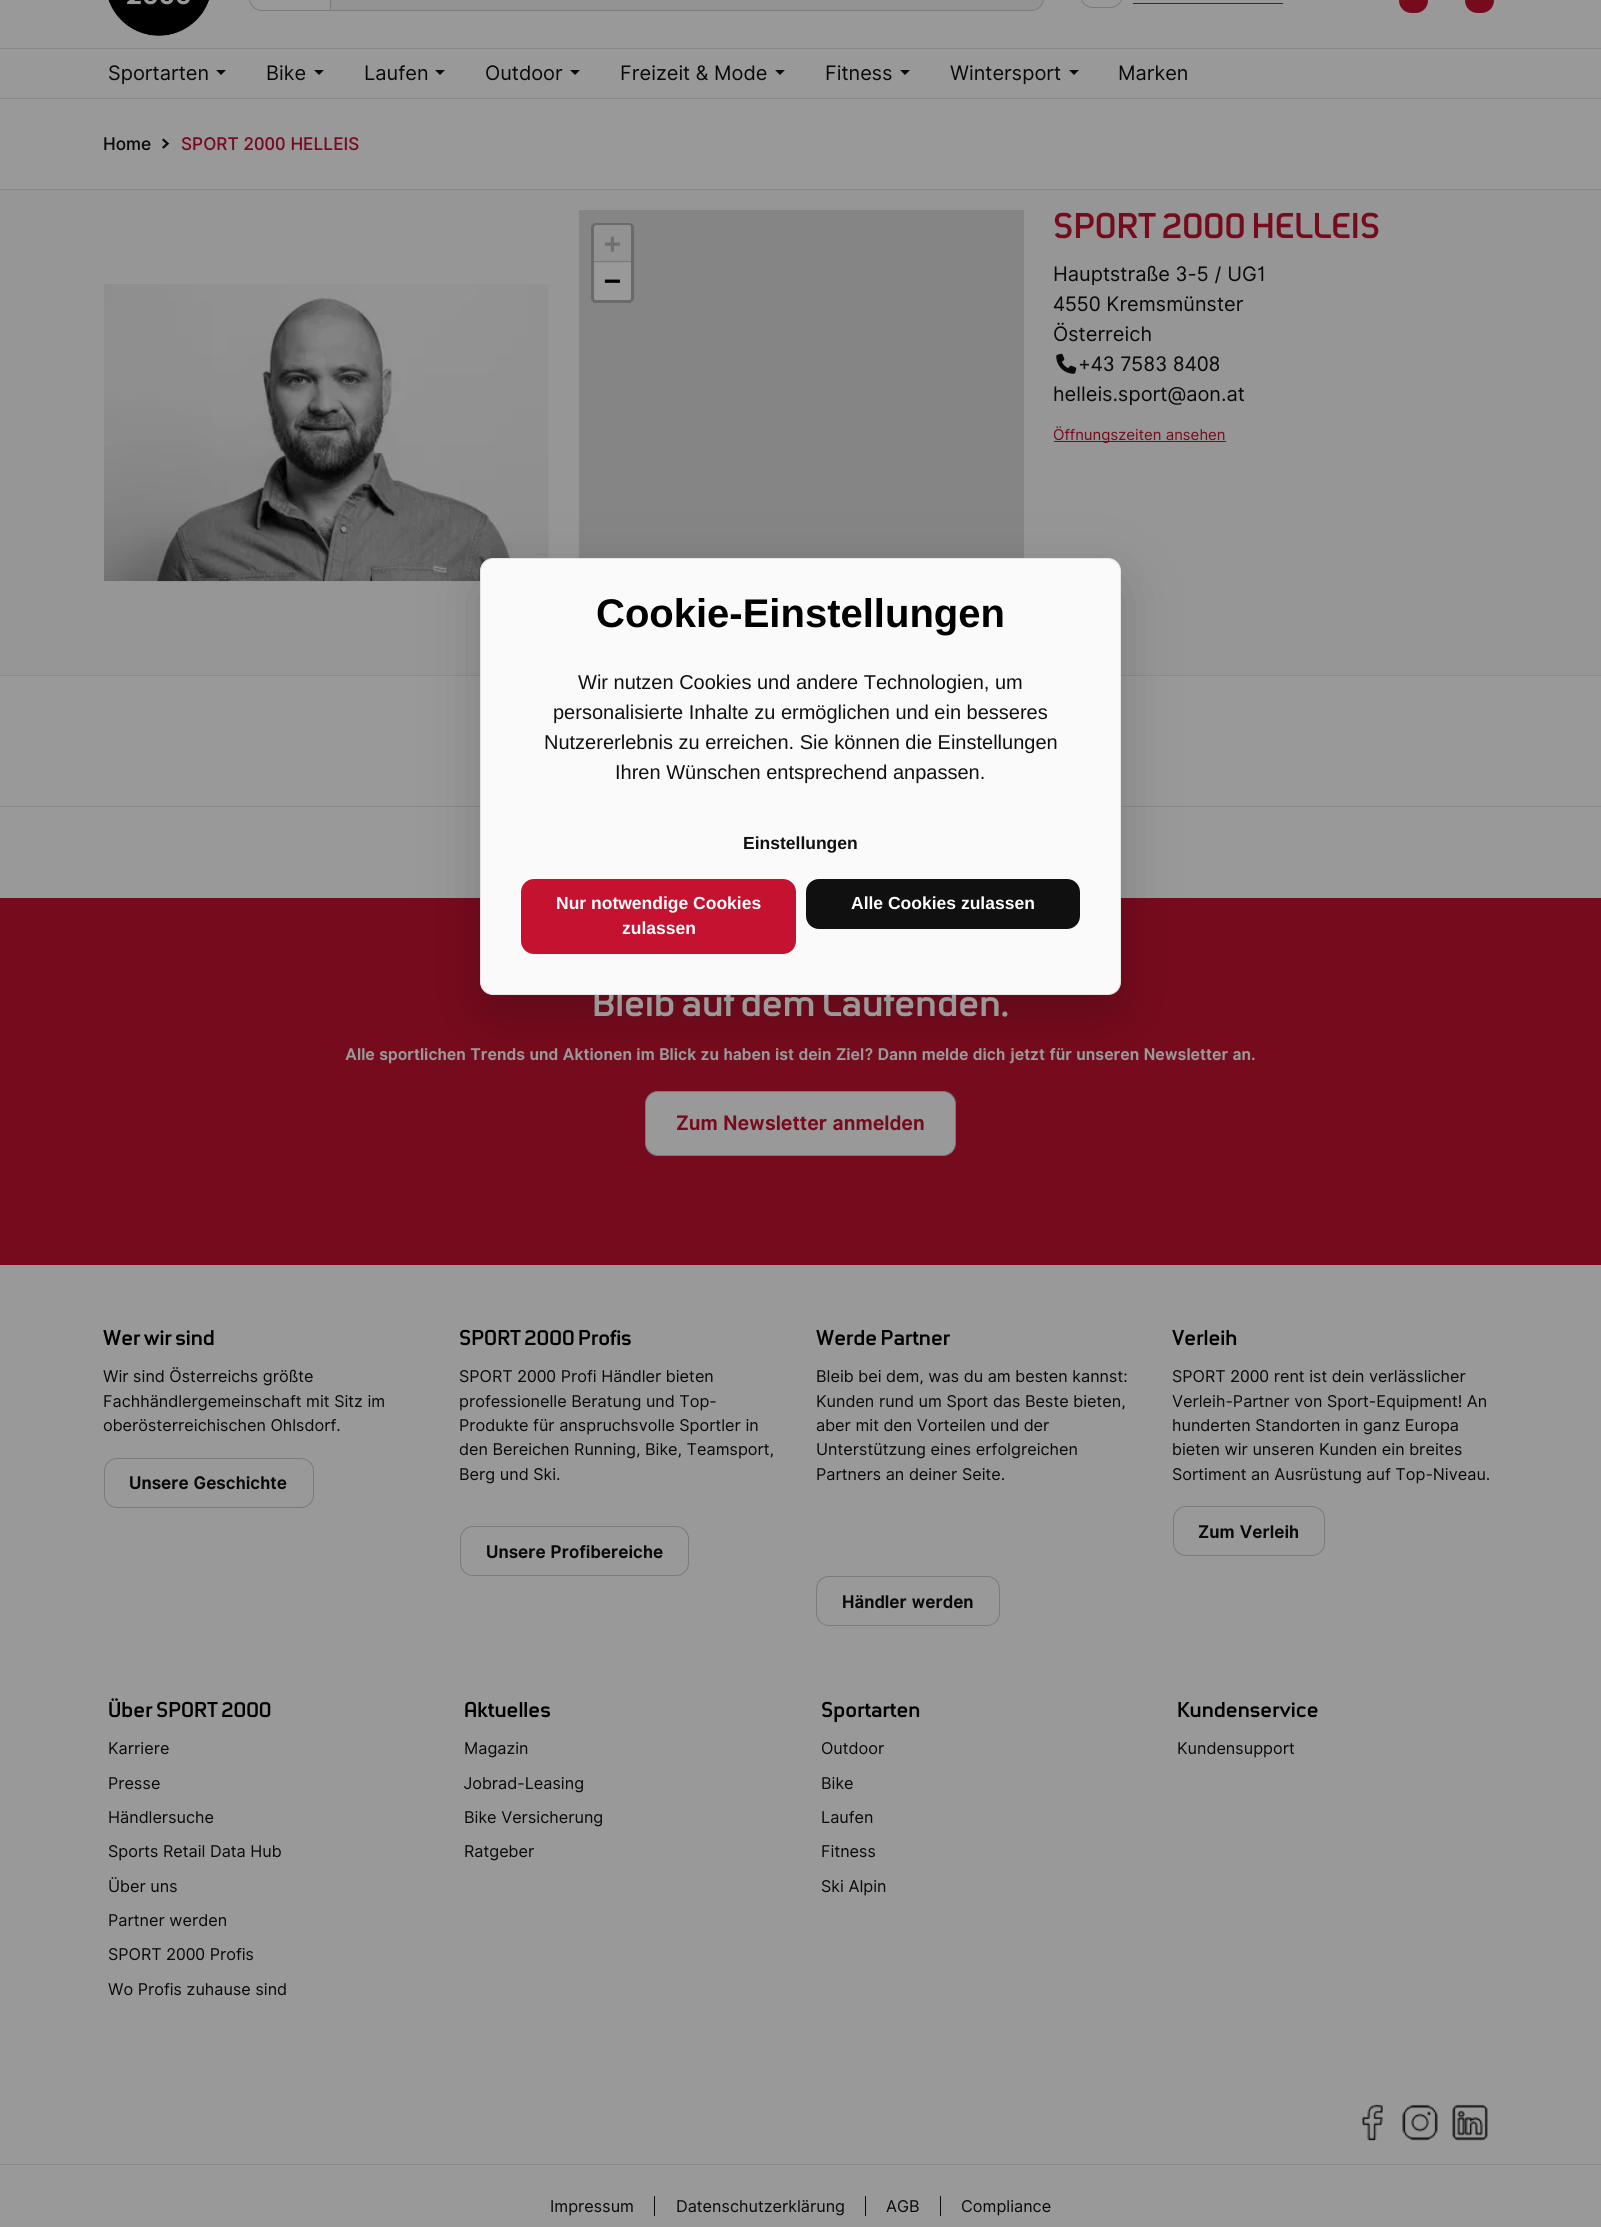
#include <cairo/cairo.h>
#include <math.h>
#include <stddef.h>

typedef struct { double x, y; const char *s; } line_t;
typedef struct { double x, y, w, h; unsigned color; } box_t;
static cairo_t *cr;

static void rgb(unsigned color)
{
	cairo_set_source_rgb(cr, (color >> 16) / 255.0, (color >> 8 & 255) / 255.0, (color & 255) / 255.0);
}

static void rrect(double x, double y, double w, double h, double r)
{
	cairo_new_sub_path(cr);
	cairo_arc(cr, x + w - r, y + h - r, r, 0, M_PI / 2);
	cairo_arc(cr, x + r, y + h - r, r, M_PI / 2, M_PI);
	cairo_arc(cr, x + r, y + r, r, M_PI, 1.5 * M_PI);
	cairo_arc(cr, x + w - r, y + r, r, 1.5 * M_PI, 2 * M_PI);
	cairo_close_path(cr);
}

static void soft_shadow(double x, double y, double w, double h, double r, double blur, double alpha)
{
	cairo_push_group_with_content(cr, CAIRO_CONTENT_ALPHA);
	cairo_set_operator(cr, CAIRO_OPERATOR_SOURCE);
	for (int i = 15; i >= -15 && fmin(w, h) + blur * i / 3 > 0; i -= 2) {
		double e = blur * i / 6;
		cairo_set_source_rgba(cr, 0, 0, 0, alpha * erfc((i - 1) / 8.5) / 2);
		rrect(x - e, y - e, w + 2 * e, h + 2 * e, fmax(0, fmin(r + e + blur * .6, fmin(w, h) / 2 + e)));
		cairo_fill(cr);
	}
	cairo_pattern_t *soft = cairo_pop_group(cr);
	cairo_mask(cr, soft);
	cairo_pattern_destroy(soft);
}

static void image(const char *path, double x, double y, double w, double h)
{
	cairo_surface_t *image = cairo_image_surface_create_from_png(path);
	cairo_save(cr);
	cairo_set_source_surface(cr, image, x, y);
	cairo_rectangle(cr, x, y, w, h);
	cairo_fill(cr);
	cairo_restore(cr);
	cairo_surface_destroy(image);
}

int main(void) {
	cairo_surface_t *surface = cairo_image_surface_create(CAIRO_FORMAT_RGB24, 1601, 2227);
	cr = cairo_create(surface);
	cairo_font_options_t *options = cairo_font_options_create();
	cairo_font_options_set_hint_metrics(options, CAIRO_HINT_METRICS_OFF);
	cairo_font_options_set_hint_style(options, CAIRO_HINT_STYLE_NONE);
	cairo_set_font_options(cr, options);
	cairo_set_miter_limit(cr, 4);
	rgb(0x999999);
	cairo_paint(cr);
	rgb(0x898989);
	cairo_rectangle(cr, 0, 48, 1601, 1);
	cairo_fill(cr);
	image("img/1.png", 108, 0, 102, 36);
	rgb(0x939393);
	cairo_new_path(cr);
	cairo_move_to(cr, 331, -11);
	cairo_line_to(cr, 1032, -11);
	cairo_curve_to(cr, 1038, -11, 1043, -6, 1043, 0);
	cairo_line_to(cr, 1043, -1);
	cairo_curve_to(cr, 1043, 5, 1038, 10, 1032, 10);
	cairo_line_to(cr, 331, 10);
	cairo_close_path(cr);
	cairo_fill(cr);
	cairo_new_path(cr);
	cairo_move_to(cr, 330.5, -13.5);
	cairo_line_to(cr, 1031, -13.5);
	cairo_curve_to(cr, 1038, -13.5, 1043.5, -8, 1043.5, -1);
	cairo_line_to(cr, 1043.5, -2);
	cairo_curve_to(cr, 1043.5, 5, 1038, 10.5, 1031, 10.5);
	cairo_line_to(cr, 330.5, 10.5);
	cairo_close_path(cr);
	rgb(0x7a7a7a);
	cairo_set_line_width(cr, 1);
	cairo_stroke(cr);
	cairo_new_path(cr);
	cairo_move_to(cr, 262, -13.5);
	cairo_line_to(cr, 330.5, -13.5);
	cairo_line_to(cr, 330.5, 10.5);
	cairo_line_to(cr, 262, 10.5);
	cairo_curve_to(cr, 255, 10.5, 249.5, 5, 249.5, -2);
	cairo_line_to(cr, 249.5, -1);
	cairo_curve_to(cr, 249.5, -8, 255, -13.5, 262, -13.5);
	cairo_close_path(cr);
	cairo_stroke(cr);
	rrect(1080.5, -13.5, 42, 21, 12.5);
	cairo_stroke(cr);
	rgb(0x760b1d);
	cairo_rectangle(cr, 1133, 3, 150, 1);
	cairo_fill(cr);
	rrect(1399, -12, 29, 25, 12.5);
	cairo_fill(cr);
	rrect(1465, -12, 29, 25, 12.5);
	cairo_fill(cr);
	rgb(0x898989);
	cairo_rectangle(cr, 0, 98, 1601, 1);
	cairo_fill(cr);
	rgb(0x0a0a0a);
	cairo_new_path(cr);
	cairo_move_to(cr, 216, 70);
	cairo_line_to(cr, 226, 70);
	cairo_line_to(cr, 221, 75);
	cairo_close_path(cr);
	cairo_fill(cr);
	cairo_new_path(cr);
	cairo_move_to(cr, 314, 70);
	cairo_line_to(cr, 324, 70);
	cairo_line_to(cr, 319, 75);
	cairo_close_path(cr);
	cairo_fill(cr);
	cairo_new_path(cr);
	cairo_move_to(cr, 435, 70);
	cairo_line_to(cr, 445, 70);
	cairo_line_to(cr, 440, 75);
	cairo_close_path(cr);
	cairo_fill(cr);
	cairo_new_path(cr);
	cairo_move_to(cr, 570, 70);
	cairo_line_to(cr, 580, 70);
	cairo_line_to(cr, 575, 75);
	cairo_close_path(cr);
	cairo_fill(cr);
	cairo_new_path(cr);
	cairo_move_to(cr, 775, 70);
	cairo_line_to(cr, 785, 70);
	cairo_line_to(cr, 780, 75);
	cairo_close_path(cr);
	cairo_fill(cr);
	cairo_new_path(cr);
	cairo_move_to(cr, 900, 70);
	cairo_line_to(cr, 910, 70);
	cairo_line_to(cr, 905, 75);
	cairo_close_path(cr);
	cairo_fill(cr);
	cairo_new_path(cr);
	cairo_move_to(cr, 1069, 70);
	cairo_line_to(cr, 1079, 70);
	cairo_line_to(cr, 1074, 75);
	cairo_close_path(cr);
	cairo_fill(cr);
	{
		static const box_t items[] = {
			{0, 190, 1601, 485, 0x969696},
			{0, 189, 1601, 1, 0x898989},
			{0, 675, 1601, 1, 0x898989},
			{579, 210, 445, 348, 0x858585},
		};
		for (size_t i = 0; i < sizeof items / sizeof *items; i++) {
			rgb(items[i].color);
			cairo_rectangle(cr, items[i].x, items[i].y, items[i].w, items[i].h);
			cairo_fill(cr);
		}
	}
	rrect(592.5, 224.5, 40, 77, 3.5);
	rgb(0x6a6a6a);
	cairo_set_line_width(cr, 3);
	cairo_stroke(cr);
	rgb(0x929292);
	cairo_new_path(cr);
	cairo_move_to(cr, 596.5, 225);
	cairo_line_to(cr, 628.5, 225);
	cairo_curve_to(cr, 630, 225, 631, 226, 631, 227.5);
	cairo_line_to(cr, 631, 263);
	cairo_line_to(cr, 594, 263);
	cairo_line_to(cr, 594, 227.5);
	cairo_curve_to(cr, 594, 226, 595, 225, 596.5, 225);
	cairo_close_path(cr);
	cairo_fill(cr);
	rgb(0x7a7a7a);
	cairo_rectangle(cr, 594, 261, 37, 1);
	cairo_fill(cr);
	rgb(0x999999);
	cairo_new_path(cr);
	cairo_move_to(cr, 594, 263);
	cairo_line_to(cr, 631, 263);
	cairo_line_to(cr, 631, 297.5);
	cairo_curve_to(cr, 631, 299, 630, 300, 628.5, 300);
	cairo_line_to(cr, 596.5, 300);
	cairo_curve_to(cr, 595, 300, 594, 299, 594, 297.5);
	cairo_close_path(cr);
	cairo_fill(cr);
	image("img/2.png", 1056, 353, 21, 21);
	rgb(0x760b1d);
	cairo_rectangle(cr, 1054, 441, 172, 1);
	cairo_fill(cr);
	image("img/3.png", 104, 284, 445, 298);
	rgb(0x898989);
	cairo_rectangle(cr, 0, 806, 1601, 1);
	cairo_fill(cr);
	rgb(0x760b1d);
	cairo_rectangle(cr, 0, 898, 1601, 367);
	cairo_fill(cr);
	rgb(0x999999);
	rrect(645.5, 1091.5, 310, 64, 12.5);
	cairo_fill_preserve(cr);
	rgb(0x7a7a7a);
	cairo_set_line_width(cr, 1);
	cairo_stroke(cr);
	rrect(104.5, 1458.5, 209, 49, 12.5);
	cairo_stroke(cr);
	rrect(460.5, 1526.5, 228, 49, 12.5);
	cairo_stroke(cr);
	rrect(816.5, 1576.5, 183, 49, 12.5);
	cairo_stroke(cr);
	rrect(1173.5, 1506.5, 151, 49, 12.5);
	cairo_stroke(cr);
	image("img/4.png", 1362, 2104, 21, 37);
	image("img/5.png", 1402, 2104, 36, 37);
	image("img/6.png", 1452, 2104, 36, 37);
	{
		static const box_t items[] = {
			{0, 2164, 1601, 1, 0x898989},
			{654, 2196, 1, 20, 0x0a0a0a},
			{865, 2196, 1, 20, 0x0a0a0a},
			{940, 2196, 1, 20, 0x0a0a0a},
		};
		for (size_t i = 0; i < sizeof items / sizeof *items; i++) {
			rgb(items[i].color);
			cairo_rectangle(cr, items[i].x, items[i].y, items[i].w, items[i].h);
			cairo_fill(cr);
		}
	}
	rgb(0x000000);
	soft_shadow(480, 578, 641, 437, 13, 30, 0.18);
	cairo_select_font_face(cr, "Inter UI", CAIRO_FONT_SLANT_NORMAL, CAIRO_FONT_WEIGHT_NORMAL);
	cairo_set_font_size(cr, 20);
	rgb(0x0a0a0a);
	{
		static const line_t items[] = {
			{108, 80, "Sportarten"},
			{266, 80, "Bike"},
			{364, 80, "Laufen"},
			{485, 80, "Outdoor"},
			{620, 80, "Freizeit & Mode"},
			{825, 80, "Fitness"},
			{950, 80, "Wintersport"},
			{1118, 80, "Marken"},
		};
		for (size_t i = 0; i < sizeof items / sizeof *items; i++) {
			cairo_move_to(cr, items[i].x, items[i].y);
			cairo_show_text(cr, items[i].s);
		}
	}
	cairo_select_font_face(cr, "Inter UI Medium", CAIRO_FONT_SLANT_NORMAL, CAIRO_FONT_WEIGHT_NORMAL);
	cairo_set_font_size(cr, 17.5);
	cairo_move_to(cr, 103, 150);
	cairo_show_text(cr, "Home");
	cairo_select_font_face(cr, "Inter UI", CAIRO_FONT_SLANT_NORMAL, CAIRO_FONT_WEIGHT_BOLD);
	cairo_set_font_size(cr, 20);
	cairo_move_to(cr, 161, 150);
	cairo_show_text(cr, ">");
	cairo_select_font_face(cr, "Inter UI Medium", CAIRO_FONT_SLANT_NORMAL, CAIRO_FONT_WEIGHT_NORMAL);
	cairo_set_font_size(cr, 17.5);
	rgb(0x760b1d);
	cairo_move_to(cr, 181, 150);
	cairo_show_text(cr, "SPORT 2000 HELLEIS");
	cairo_select_font_face(cr, "DejaVu Sans Mono", CAIRO_FONT_SLANT_NORMAL, CAIRO_FONT_WEIGHT_BOLD);
	cairo_set_font_size(cr, 28);
	rgb(0x707070);
	cairo_move_to(cr, 604, 253);
	cairo_show_text(cr, "+");
	rgb(0x000000);
	cairo_move_to(cr, 604, 290);
	cairo_show_text(cr, "−");
	cairo_select_font_face(cr, "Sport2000", CAIRO_FONT_SLANT_NORMAL, CAIRO_FONT_WEIGHT_BOLD);
	cairo_set_font_size(cr, 37.5);
	rgb(0x760b1d);
	cairo_move_to(cr, 1053, 238);
	cairo_show_text(cr, "SPORT 2000 HELLEIS");
	cairo_select_font_face(cr, "Inter UI", CAIRO_FONT_SLANT_NORMAL, CAIRO_FONT_WEIGHT_NORMAL);
	cairo_set_font_size(cr, 20);
	rgb(0x0a0a0a);
	{
		static const line_t items[] = {
			{1053, 281, "Hauptstraße 3-5 / UG1"},
			{1053, 311, "4550 Kremsmünster"},
			{1053, 341, "Österreich"},
			{1078, 371, "+43 7583 8408"},
			{1053, 401, "helleis.sport@aon.at"},
		};
		for (size_t i = 0; i < sizeof items / sizeof *items; i++) {
			cairo_move_to(cr, items[i].x, items[i].y);
			cairo_show_text(cr, items[i].s);
		}
	}
	cairo_set_font_size(cr, 15);
	rgb(0x760b1d);
	cairo_move_to(cr, 1053, 440);
	cairo_show_text(cr, "Öffnungszeiten ansehen");
	cairo_select_font_face(cr, "Sport2000", CAIRO_FONT_SLANT_NORMAL, CAIRO_FONT_WEIGHT_BOLD);
	cairo_set_font_size(cr, 40);
	rgb(0x999999);
	cairo_move_to(cr, 592, 1016);
	cairo_show_text(cr, "Bleib auf dem Laufenden.");
	cairo_select_font_face(cr, "Inter UI", CAIRO_FONT_SLANT_NORMAL, CAIRO_FONT_WEIGHT_BOLD);
	cairo_set_font_size(cr, 16.25);
	cairo_move_to(cr, 345, 1060);
	cairo_show_text(cr, "Alle sportlichen Trends und Aktionen im Blick zu haben ist dein Ziel? Dann melde dich jetzt für unseren Newsletter an.");
	cairo_set_font_size(cr, 20);
	rgb(0x760b1d);
	cairo_move_to(cr, 676, 1130);
	cairo_show_text(cr, "Zum Newsletter anmelden");
	cairo_select_font_face(cr, "Sport2000", CAIRO_FONT_SLANT_NORMAL, CAIRO_FONT_WEIGHT_BOLD);
	cairo_set_font_size(cr, 22.5);
	rgb(0x000000);
	cairo_move_to(cr, 103, 1345);
	cairo_show_text(cr, "Wer wir sind");
	cairo_select_font_face(cr, "Inter UI", CAIRO_FONT_SLANT_NORMAL, CAIRO_FONT_WEIGHT_NORMAL);
	cairo_set_font_size(cr, 16.25);
	rgb(0x0a0a0a);
	{
		static const line_t items[] = {
			{103, 1382, "Wir sind Österreichs größte"},
			{103, 1407, "Fachhändlergemeinschaft mit Sitz im"},
			{103, 1431, "oberösterreichischen Ohlsdorf."},
		};
		for (size_t i = 0; i < sizeof items / sizeof *items; i++) {
			cairo_move_to(cr, items[i].x, items[i].y);
			cairo_show_text(cr, items[i].s);
		}
	}
	cairo_select_font_face(cr, "Inter UI", CAIRO_FONT_SLANT_NORMAL, CAIRO_FONT_WEIGHT_BOLD);
	cairo_set_font_size(cr, 17.5);
	cairo_move_to(cr, 129, 1489);
	cairo_show_text(cr, "Unsere Geschichte");
	cairo_select_font_face(cr, "Sport2000", CAIRO_FONT_SLANT_NORMAL, CAIRO_FONT_WEIGHT_BOLD);
	cairo_set_font_size(cr, 22.5);
	rgb(0x000000);
	cairo_move_to(cr, 459, 1345);
	cairo_show_text(cr, "SPORT 2000 Profis");
	cairo_select_font_face(cr, "Inter UI", CAIRO_FONT_SLANT_NORMAL, CAIRO_FONT_WEIGHT_NORMAL);
	cairo_set_font_size(cr, 16.25);
	rgb(0x0a0a0a);
	{
		static const line_t items[] = {
			{459, 1382, "SPORT 2000 Profi Händler bieten"},
			{459, 1407, "professionelle Beratung und Top-"},
			{459, 1431, "Produkte für anspruchsvolle Sportler in"},
			{459, 1455, "den Bereichen Running, Bike, Teamsport,"},
			{459, 1480, "Berg und Ski."},
		};
		for (size_t i = 0; i < sizeof items / sizeof *items; i++) {
			cairo_move_to(cr, items[i].x, items[i].y);
			cairo_show_text(cr, items[i].s);
		}
	}
	cairo_select_font_face(cr, "Inter UI", CAIRO_FONT_SLANT_NORMAL, CAIRO_FONT_WEIGHT_BOLD);
	cairo_set_font_size(cr, 17.5);
	cairo_move_to(cr, 486, 1558);
	cairo_show_text(cr, "Unsere Profibereiche");
	cairo_select_font_face(cr, "Sport2000", CAIRO_FONT_SLANT_NORMAL, CAIRO_FONT_WEIGHT_BOLD);
	cairo_set_font_size(cr, 22.5);
	rgb(0x000000);
	cairo_move_to(cr, 816, 1345);
	cairo_show_text(cr, "Werde Partner");
	cairo_select_font_face(cr, "Inter UI", CAIRO_FONT_SLANT_NORMAL, CAIRO_FONT_WEIGHT_NORMAL);
	cairo_set_font_size(cr, 16.25);
	rgb(0x0a0a0a);
	{
		static const line_t items[] = {
			{816, 1382, "Bleib bei dem, was du am besten kannst:"},
			{816, 1407, "Kunden rund um Sport das Beste bieten,"},
			{816, 1431, "aber mit den Vorteilen und der"},
			{816, 1455, "Unterstützung eines erfolgreichen"},
			{816, 1480, "Partners an deiner Seite."},
		};
		for (size_t i = 0; i < sizeof items / sizeof *items; i++) {
			cairo_move_to(cr, items[i].x, items[i].y);
			cairo_show_text(cr, items[i].s);
		}
	}
	cairo_select_font_face(cr, "Inter UI", CAIRO_FONT_SLANT_NORMAL, CAIRO_FONT_WEIGHT_BOLD);
	cairo_set_font_size(cr, 17.5);
	cairo_move_to(cr, 842, 1608);
	cairo_show_text(cr, "Händler werden");
	cairo_select_font_face(cr, "Sport2000", CAIRO_FONT_SLANT_NORMAL, CAIRO_FONT_WEIGHT_BOLD);
	cairo_set_font_size(cr, 22.5);
	rgb(0x000000);
	cairo_move_to(cr, 1172, 1345);
	cairo_show_text(cr, "Verleih");
	cairo_select_font_face(cr, "Inter UI", CAIRO_FONT_SLANT_NORMAL, CAIRO_FONT_WEIGHT_NORMAL);
	cairo_set_font_size(cr, 16.25);
	rgb(0x0a0a0a);
	{
		static const line_t items[] = {
			{1172, 1382, "SPORT 2000 rent ist dein verlässlicher"},
			{1172, 1407, "Verleih-Partner von Sport-Equipment! An"},
			{1172, 1431, "hunderten Standorten in ganz Europa"},
			{1172, 1455, "bieten wir unseren Kunden ein breites"},
			{1172, 1480, "Sortiment an Ausrüstung auf Top-Niveau."},
		};
		for (size_t i = 0; i < sizeof items / sizeof *items; i++) {
			cairo_move_to(cr, items[i].x, items[i].y);
			cairo_show_text(cr, items[i].s);
		}
	}
	cairo_select_font_face(cr, "Inter UI", CAIRO_FONT_SLANT_NORMAL, CAIRO_FONT_WEIGHT_BOLD);
	cairo_set_font_size(cr, 17.5);
	cairo_move_to(cr, 1198, 1538);
	cairo_show_text(cr, "Zum Verleih");
	cairo_select_font_face(cr, "Sport2000", CAIRO_FONT_SLANT_NORMAL, CAIRO_FONT_WEIGHT_BOLD);
	cairo_set_font_size(cr, 22.5);
	rgb(0x000000);
	cairo_move_to(cr, 108, 1717);
	cairo_show_text(cr, "Über SPORT 2000");
	cairo_select_font_face(cr, "Inter UI", CAIRO_FONT_SLANT_NORMAL, CAIRO_FONT_WEIGHT_NORMAL);
	cairo_set_font_size(cr, 16.25);
	rgb(0x0a0a0a);
	{
		static const line_t items[] = {
			{108, 1754, "Karriere"},
			{108, 1789, "Presse"},
			{108, 1823, "Händlersuche"},
			{108, 1857, "Sports Retail Data Hub"},
			{108, 1892, "Über uns"},
			{108, 1926, "Partner werden"},
			{108, 1960, "SPORT 2000 Profis"},
			{108, 1995, "Wo Profis zuhause sind"},
		};
		for (size_t i = 0; i < sizeof items / sizeof *items; i++) {
			cairo_move_to(cr, items[i].x, items[i].y);
			cairo_show_text(cr, items[i].s);
		}
	}
	cairo_select_font_face(cr, "Sport2000", CAIRO_FONT_SLANT_NORMAL, CAIRO_FONT_WEIGHT_BOLD);
	cairo_set_font_size(cr, 22.5);
	rgb(0x000000);
	cairo_move_to(cr, 464, 1717);
	cairo_show_text(cr, "Aktuelles");
	cairo_select_font_face(cr, "Inter UI", CAIRO_FONT_SLANT_NORMAL, CAIRO_FONT_WEIGHT_NORMAL);
	cairo_set_font_size(cr, 16.25);
	rgb(0x0a0a0a);
	{
		static const line_t items[] = {
			{464, 1754, "Magazin"},
			{464, 1789, "Jobrad-Leasing"},
			{464, 1823, "Bike Versicherung"},
			{464, 1857, "Ratgeber"},
		};
		for (size_t i = 0; i < sizeof items / sizeof *items; i++) {
			cairo_move_to(cr, items[i].x, items[i].y);
			cairo_show_text(cr, items[i].s);
		}
	}
	cairo_select_font_face(cr, "Sport2000", CAIRO_FONT_SLANT_NORMAL, CAIRO_FONT_WEIGHT_BOLD);
	cairo_set_font_size(cr, 22.5);
	rgb(0x000000);
	cairo_move_to(cr, 821, 1717);
	cairo_show_text(cr, "Sportarten");
	cairo_select_font_face(cr, "Inter UI", CAIRO_FONT_SLANT_NORMAL, CAIRO_FONT_WEIGHT_NORMAL);
	cairo_set_font_size(cr, 16.25);
	rgb(0x0a0a0a);
	{
		static const line_t items[] = {
			{821, 1754, "Outdoor"},
			{821, 1789, "Bike"},
			{821, 1823, "Laufen"},
			{821, 1857, "Fitness"},
			{821, 1892, "Ski Alpin"},
		};
		for (size_t i = 0; i < sizeof items / sizeof *items; i++) {
			cairo_move_to(cr, items[i].x, items[i].y);
			cairo_show_text(cr, items[i].s);
		}
	}
	cairo_select_font_face(cr, "Sport2000", CAIRO_FONT_SLANT_NORMAL, CAIRO_FONT_WEIGHT_BOLD);
	cairo_set_font_size(cr, 22.5);
	rgb(0x000000);
	cairo_move_to(cr, 1177, 1717);
	cairo_show_text(cr, "Kundenservice");
	cairo_select_font_face(cr, "Inter UI", CAIRO_FONT_SLANT_NORMAL, CAIRO_FONT_WEIGHT_NORMAL);
	cairo_set_font_size(cr, 16.25);
	rgb(0x0a0a0a);
	{
		static const line_t items[] = {
			{1177, 1754, "Kundensupport"},
			{550, 2212, "Impressum"},
			{676, 2212, "Datenschutzerklärung"},
			{886, 2212, "AGB"},
			{961, 2212, "Compliance"},
		};
		for (size_t i = 0; i < sizeof items / sizeof *items; i++) {
			cairo_move_to(cr, items[i].x, items[i].y);
			cairo_show_text(cr, items[i].s);
		}
	}
	rgb(0xfafafa);
	rrect(480.5, 558.5, 640, 436, 12.5);
	cairo_fill_preserve(cr);
	rgb(0xe5e5e5);
	cairo_stroke(cr);
	cairo_select_font_face(cr, "Liberation Sans", CAIRO_FONT_SLANT_NORMAL, CAIRO_FONT_WEIGHT_BOLD);
	cairo_set_font_size(cr, 40);
	rgb(0x000000);
	cairo_move_to(cr, 596, 627);
	cairo_show_text(cr, "Cookie-Einstellungen");
	cairo_select_font_face(cr, "Liberation Sans", CAIRO_FONT_SLANT_NORMAL, CAIRO_FONT_WEIGHT_NORMAL);
	cairo_set_font_size(cr, 20);
	rgb(0x101010);
	{
		static const line_t items[] = {
			{578, 689, "Wir nutzen Cookies und andere Technologien, um"},
			{553, 719, "personalisierte Inhalte zu ermöglichen und ein besseres"},
			{544, 749, "Nutzererlebnis zu erreichen. Sie können die Einstellungen"},
			{615, 779, "Ihren Wünschen entsprechend anpassen."},
		};
		for (size_t i = 0; i < sizeof items / sizeof *items; i++) {
			cairo_move_to(cr, items[i].x, items[i].y);
			cairo_show_text(cr, items[i].s);
		}
	}
	cairo_select_font_face(cr, "Liberation Sans", CAIRO_FONT_SLANT_NORMAL, CAIRO_FONT_WEIGHT_BOLD);
	cairo_set_font_size(cr, 17.5);
	cairo_move_to(cr, 743, 849);
	cairo_show_text(cr, "Einstellungen");
	rgb(0xc41230);
	rrect(521, 879, 275, 75, 13);
	cairo_fill(cr);
	rgb(0xffffff);
	cairo_move_to(cr, 556, 909);
	cairo_show_text(cr, "Nur notwendige Cookies");
	cairo_move_to(cr, 622, 934);
	cairo_show_text(cr, "zulassen");
	rgb(0x101010);
	rrect(806, 879, 274, 50, 13);
	cairo_fill(cr);
	rgb(0xffffff);
	cairo_move_to(cr, 851, 909);
	cairo_show_text(cr, "Alle Cookies zulassen");
	cairo_surface_write_to_png(surface, "page.png");
	cairo_font_options_destroy(options);
	cairo_destroy(cr);
	cairo_surface_destroy(surface);
	return 0;
}
